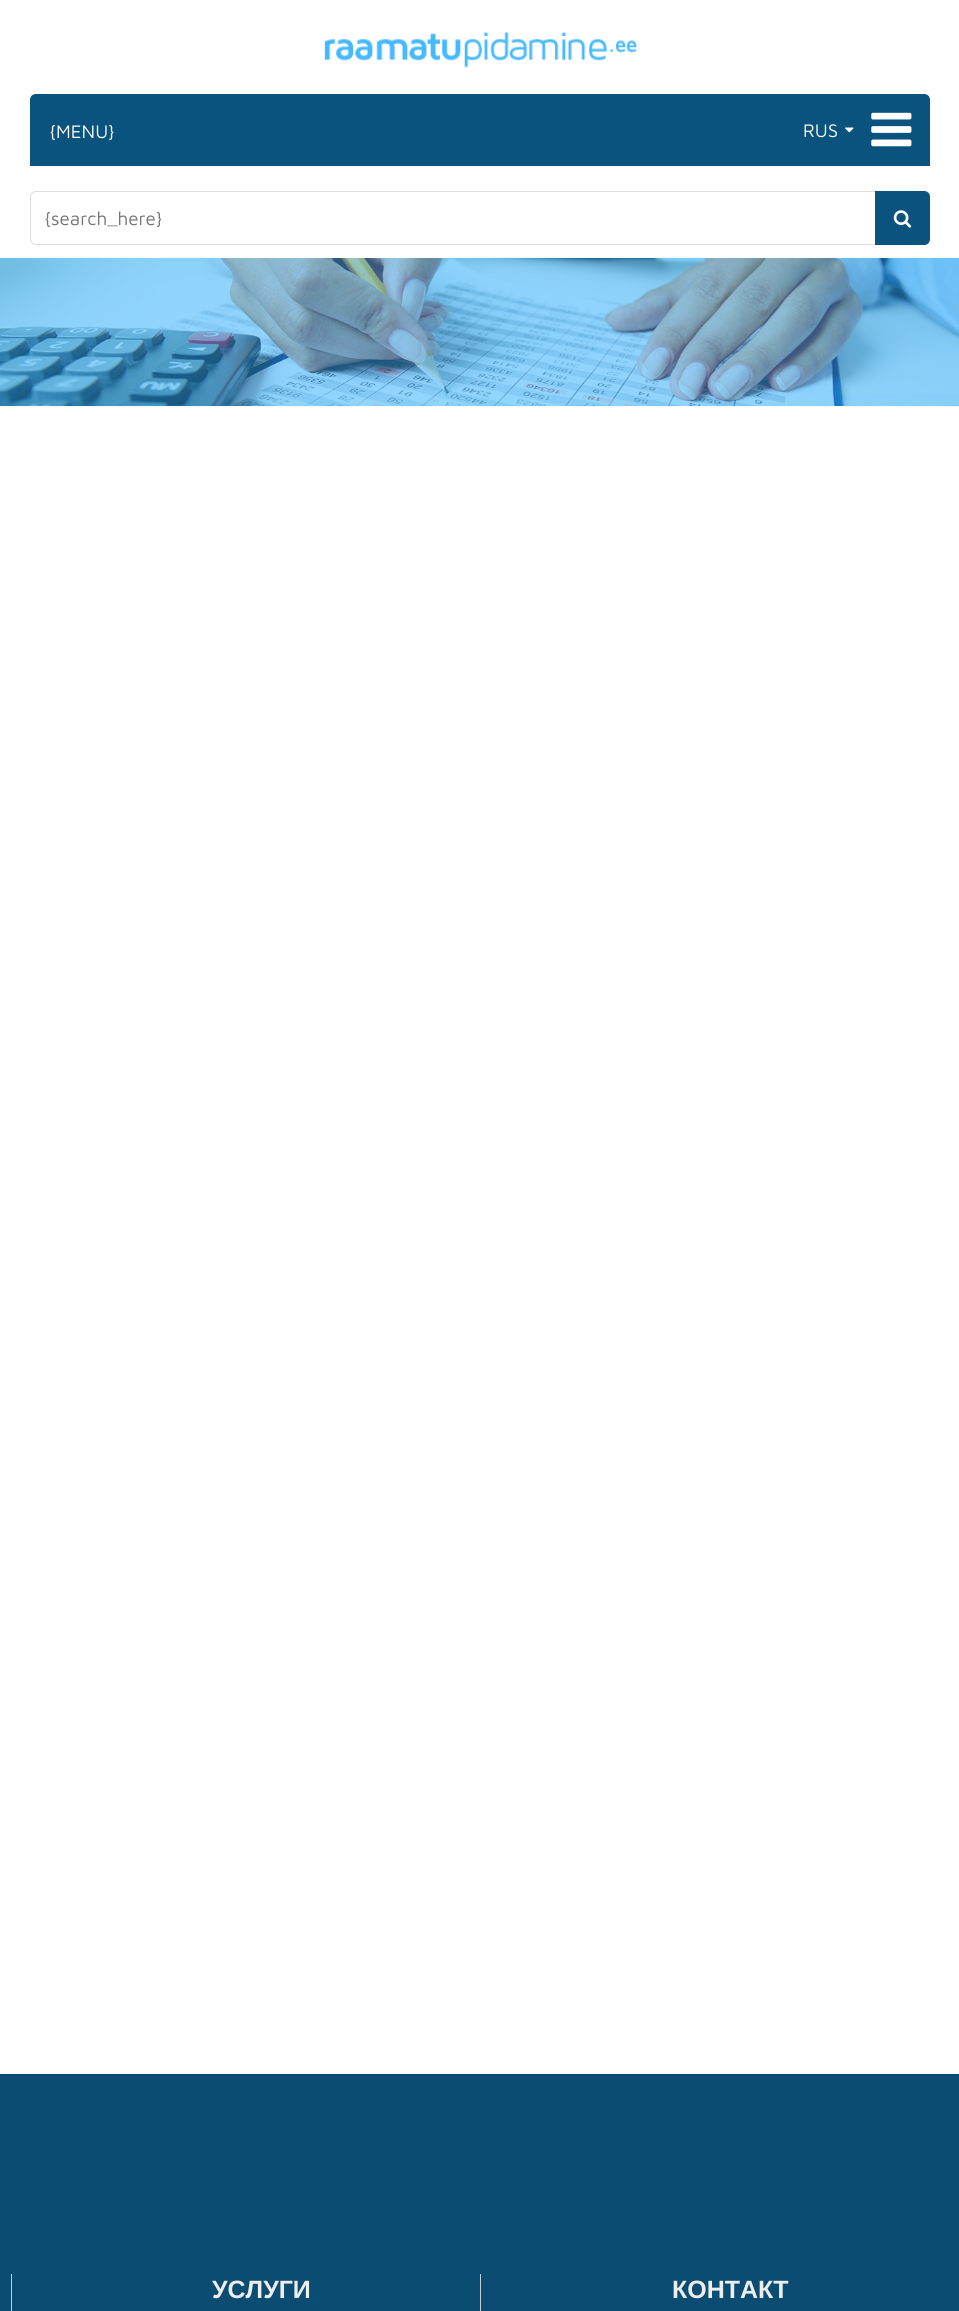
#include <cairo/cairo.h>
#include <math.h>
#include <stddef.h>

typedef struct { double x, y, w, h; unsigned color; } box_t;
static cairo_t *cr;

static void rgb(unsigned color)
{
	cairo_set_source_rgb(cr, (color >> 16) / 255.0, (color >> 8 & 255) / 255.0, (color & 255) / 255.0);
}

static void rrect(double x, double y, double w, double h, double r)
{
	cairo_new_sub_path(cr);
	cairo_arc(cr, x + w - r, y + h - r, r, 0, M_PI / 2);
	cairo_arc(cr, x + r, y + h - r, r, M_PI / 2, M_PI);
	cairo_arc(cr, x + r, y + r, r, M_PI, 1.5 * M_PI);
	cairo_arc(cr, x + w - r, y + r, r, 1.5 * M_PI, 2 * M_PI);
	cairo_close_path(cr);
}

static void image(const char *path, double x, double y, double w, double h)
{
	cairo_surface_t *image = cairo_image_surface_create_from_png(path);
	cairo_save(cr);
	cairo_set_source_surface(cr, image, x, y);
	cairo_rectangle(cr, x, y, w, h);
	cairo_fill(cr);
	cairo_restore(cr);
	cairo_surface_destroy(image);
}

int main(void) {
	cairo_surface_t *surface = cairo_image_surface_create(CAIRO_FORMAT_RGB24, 959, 2311);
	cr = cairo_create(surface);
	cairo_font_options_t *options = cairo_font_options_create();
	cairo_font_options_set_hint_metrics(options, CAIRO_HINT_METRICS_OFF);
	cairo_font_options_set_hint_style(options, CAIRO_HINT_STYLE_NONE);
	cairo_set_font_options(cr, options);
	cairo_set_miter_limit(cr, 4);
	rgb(0xffffff);
	cairo_paint(cr);
	image("img/1.png", 324, 32, 313, 36);
	rgb(0xf9f9f9);
	cairo_rectangle(cr, 30, 94, 900, 6);
	cairo_fill(cr);
	rgb(0x0a537f);
	cairo_new_path(cr);
	cairo_move_to(cr, 36, 94);
	cairo_line_to(cr, 924, 94);
	cairo_curve_to(cr, 927.5, 94, 930, 96.5, 930, 100);
	cairo_line_to(cr, 930, 166);
	cairo_line_to(cr, 30, 166);
	cairo_line_to(cr, 30, 100);
	cairo_curve_to(cr, 30, 96.5, 32.5, 94, 36, 94);
	cairo_close_path(cr);
	cairo_fill(cr);
	image("img/2.png", 871, 112, 41, 35);
	image("img/3.png", 845, 127, 9, 6);
	rrect(30.5, 191.5, 899, 53, 5.5);
	rgb(0xdddddd);
	cairo_set_line_width(cr, 1);
	cairo_stroke(cr);
	rgb(0x0a537f);
	cairo_new_path(cr);
	cairo_move_to(cr, 875, 191);
	cairo_line_to(cr, 924, 191);
	cairo_curve_to(cr, 927.5, 191, 930, 193.5, 930, 197);
	cairo_line_to(cr, 930, 239);
	cairo_curve_to(cr, 930, 242.5, 927.5, 245, 924, 245);
	cairo_line_to(cr, 875, 245);
	cairo_close_path(cr);
	cairo_fill(cr);
	image("img/4.png", 893, 210, 19, 18);
	image("img/5.png", 0, 258, 959, 148);
	{
		static const box_t items[] = {
			{0, 2074, 959, 237, 0x0b4c73},
			{11, 2274, 1, 37, 0xcccccc},
			{480, 2274, 1, 37, 0xcccccc},
		};
		for (size_t i = 0; i < sizeof items / sizeof *items; i++) {
			rgb(items[i].color);
			cairo_rectangle(cr, items[i].x, items[i].y, items[i].w, items[i].h);
			cairo_fill(cr);
		}
	}
	cairo_select_font_face(cr, "Maven Pro", CAIRO_FONT_SLANT_NORMAL, CAIRO_FONT_WEIGHT_NORMAL);
	cairo_set_font_size(cr, 18.75);
	rgb(0xffffff);
	cairo_move_to(cr, 49, 138);
	cairo_show_text(cr, "{MENU}");
	cairo_move_to(cr, 803, 137);
	cairo_show_text(cr, "RUS");
	rgb(0x757575);
	cairo_move_to(cr, 44, 225);
	cairo_show_text(cr, "{search_here}");
	cairo_select_font_face(cr, "Liberation Sans", CAIRO_FONT_SLANT_NORMAL, CAIRO_FONT_WEIGHT_BOLD);
	cairo_set_font_size(cr, 25);
	rgb(0xeeeeee);
	cairo_move_to(cr, 212, 2298);
	cairo_show_text(cr, "УСЛУГИ");
	cairo_move_to(cr, 672, 2298);
	cairo_show_text(cr, "КОНТАКТ");
	cairo_surface_write_to_png(surface, "page.png");
	cairo_font_options_destroy(options);
	cairo_destroy(cr);
	cairo_surface_destroy(surface);
	return 0;
}
